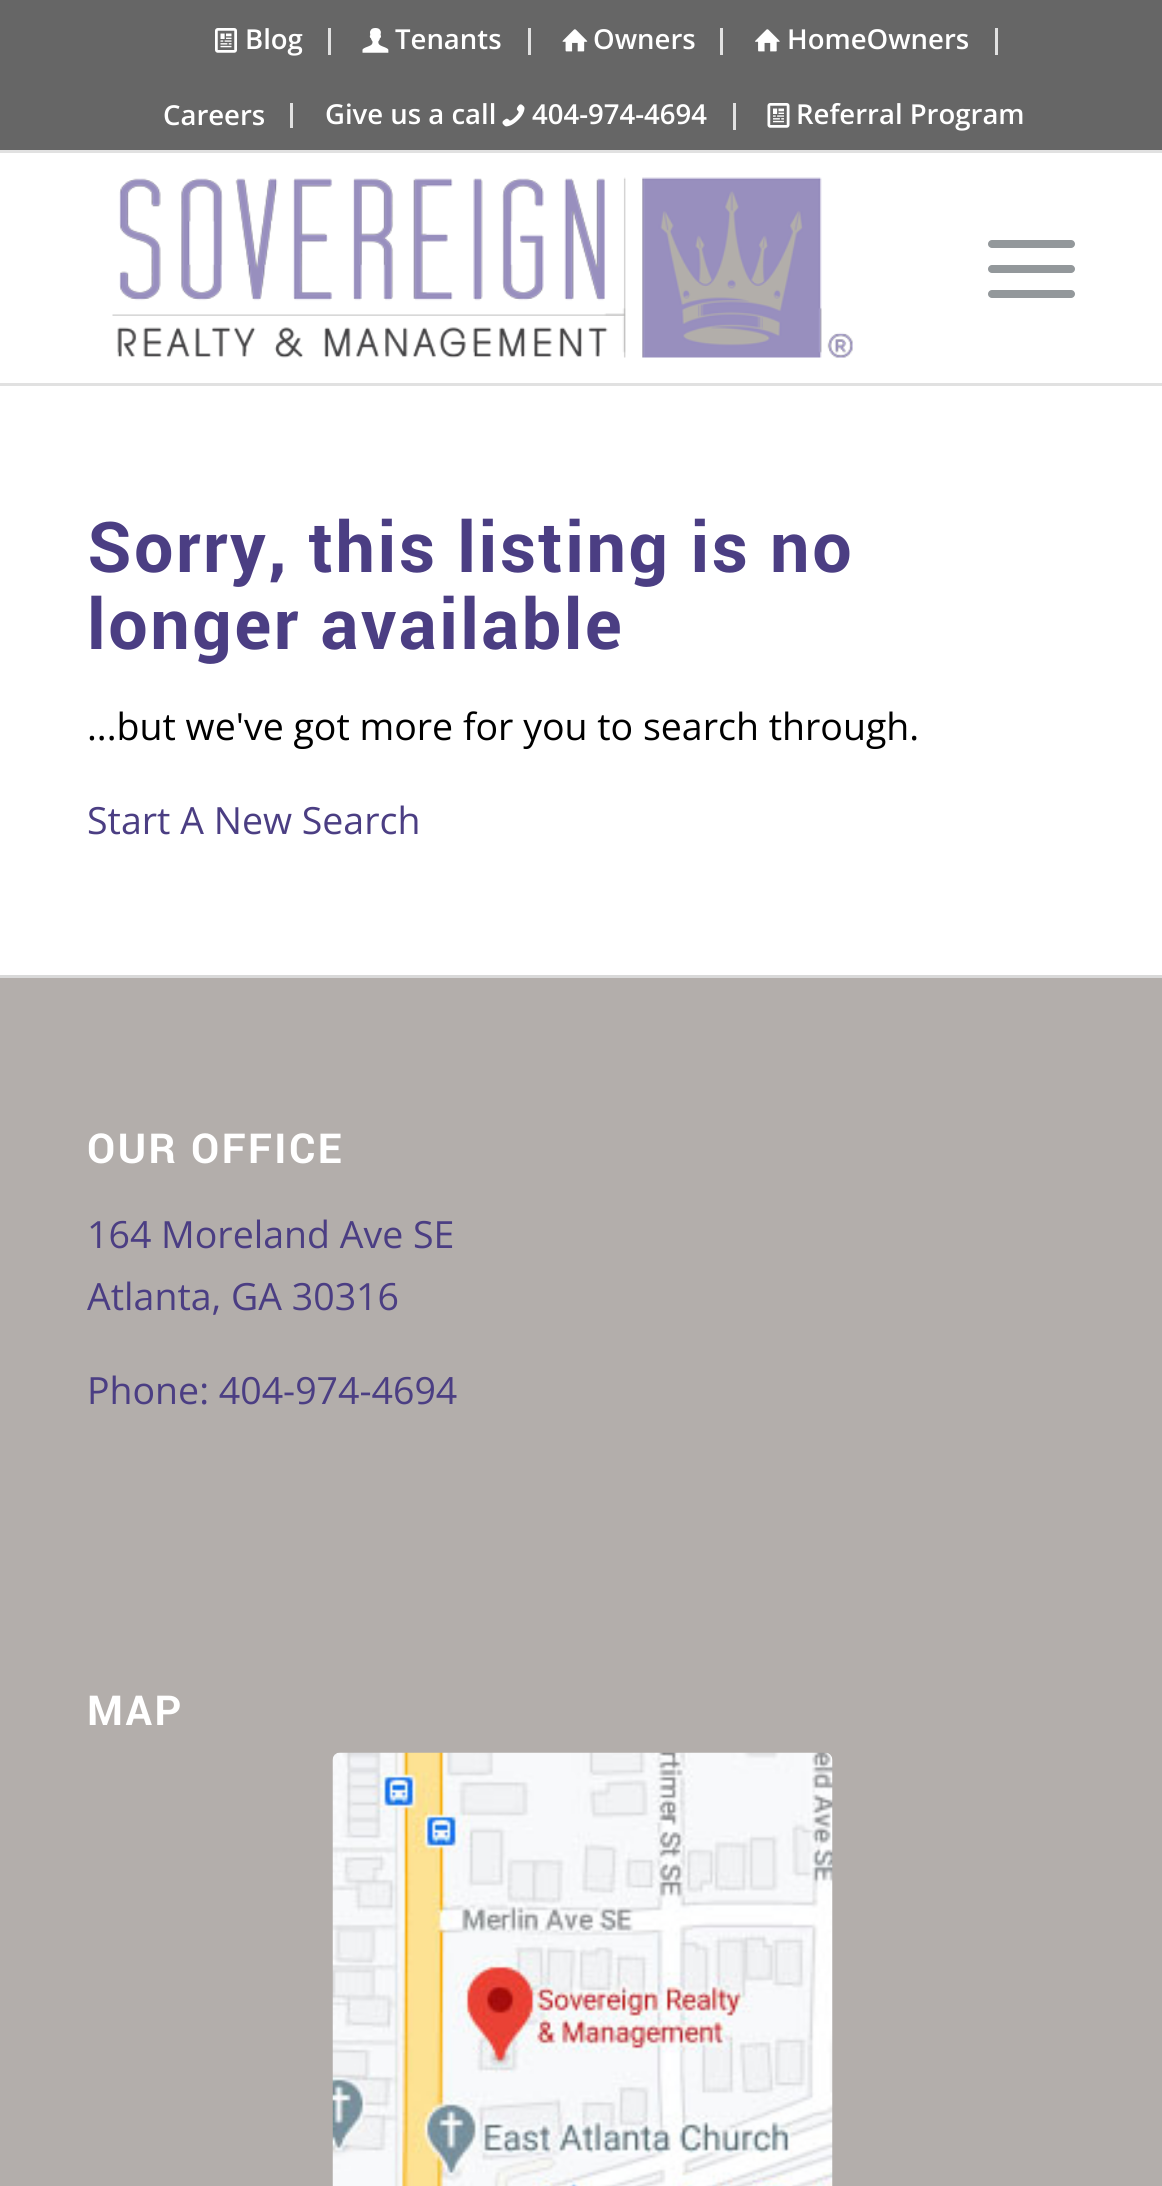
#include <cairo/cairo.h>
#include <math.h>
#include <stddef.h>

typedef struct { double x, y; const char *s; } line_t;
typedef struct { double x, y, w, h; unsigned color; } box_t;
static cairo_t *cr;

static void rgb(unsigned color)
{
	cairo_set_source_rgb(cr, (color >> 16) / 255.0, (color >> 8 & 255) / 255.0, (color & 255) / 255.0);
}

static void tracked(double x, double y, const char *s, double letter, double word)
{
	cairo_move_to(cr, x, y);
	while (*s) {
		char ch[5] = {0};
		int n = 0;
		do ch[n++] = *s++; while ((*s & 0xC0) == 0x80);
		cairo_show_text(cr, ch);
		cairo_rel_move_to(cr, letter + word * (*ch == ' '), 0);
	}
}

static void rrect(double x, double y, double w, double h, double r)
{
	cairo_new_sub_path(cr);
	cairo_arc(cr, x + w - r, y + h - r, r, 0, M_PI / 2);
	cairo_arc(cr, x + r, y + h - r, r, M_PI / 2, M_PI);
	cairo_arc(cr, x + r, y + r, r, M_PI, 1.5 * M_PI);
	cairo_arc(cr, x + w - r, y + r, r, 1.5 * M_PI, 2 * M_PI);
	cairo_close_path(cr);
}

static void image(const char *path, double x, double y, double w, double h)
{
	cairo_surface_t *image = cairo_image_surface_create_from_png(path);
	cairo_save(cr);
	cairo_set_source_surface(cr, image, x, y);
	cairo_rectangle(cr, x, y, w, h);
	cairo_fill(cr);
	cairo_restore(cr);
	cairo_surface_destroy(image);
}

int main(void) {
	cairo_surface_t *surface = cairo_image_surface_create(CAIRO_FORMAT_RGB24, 1162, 2186);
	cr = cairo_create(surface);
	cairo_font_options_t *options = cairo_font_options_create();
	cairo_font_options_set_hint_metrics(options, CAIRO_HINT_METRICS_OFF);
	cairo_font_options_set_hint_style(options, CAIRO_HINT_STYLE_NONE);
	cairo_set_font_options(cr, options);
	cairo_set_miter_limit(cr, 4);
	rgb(0xffffff);
	cairo_paint(cr);
	{
		static const box_t items[] = {
			{0, 0, 1162, 150, 0x666666},
			{0, 150, 1162, 3, 0xe1e1e1},
			{328, 28, 3, 27, 0xe1e1e1},
		};
		for (size_t i = 0; i < sizeof items / sizeof *items; i++) {
			rgb(items[i].color);
			cairo_rectangle(cr, items[i].x, items[i].y, items[i].w, items[i].h);
			cairo_fill(cr);
		}
	}
	image("img/1.png", 215, 28, 22, 25);
	cairo_rectangle(cr, 528, 28, 3, 27);
	cairo_fill(cr);
	image("img/2.png", 362, 28, 27, 25);
	cairo_rectangle(cr, 720, 28, 3, 27);
	cairo_fill(cr);
	image("img/3.png", 562, 29, 26, 23);
	cairo_rectangle(cr, 995, 28, 3, 27);
	cairo_fill(cr);
	image("img/4.png", 755, 29, 25, 23);
	cairo_rectangle(cr, 290, 103, 3, 25);
	cairo_fill(cr);
	cairo_rectangle(cr, 733, 103, 3, 27);
	cairo_fill(cr);
	image("img/5.png", 502, 104, 23, 23);
	image("img/6.png", 767, 103, 23, 25);
	cairo_rectangle(cr, 0, 383, 1162, 3);
	cairo_fill(cr);
	image("img/7.png", 112, 177, 741, 181);
	rgb(0x93989b);
	rrect(988, 265, 87, 8, 4);
	cairo_fill(cr);
	rrect(988, 240, 87, 8, 4);
	cairo_fill(cr);
	rrect(988, 290, 87, 8, 4);
	cairo_fill(cr);
	rgb(0xb3aeab);
	cairo_rectangle(cr, 0, 978, 1162, 1208);
	cairo_fill(cr);
	rgb(0xd9d9d9);
	cairo_rectangle(cr, 0, 975, 1162, 3);
	cairo_fill(cr);
	image("img/8.png", 332, 1752, 501, 434);
	cairo_select_font_face(cr, "Open Sans SemiBold", CAIRO_FONT_SLANT_NORMAL, CAIRO_FONT_WEIGHT_NORMAL);
	cairo_set_font_size(cr, 27.5);
	rgb(0xffffff);
	{
		static const line_t items[] = {
			{245, 49, "Blog"},
			{395, 49, "Tenants"},
			{593, 49, "Owners"},
			{787, 49, "HomeOwners"},
			{163, 125, "Careers"},
			{325, 124, "Give us a call"},
			{532, 124, "404-974-4694"},
			{796, 124, "Referral Program"},
		};
		for (size_t i = 0; i < sizeof items / sizeof *items; i++) {
			cairo_move_to(cr, items[i].x, items[i].y);
			cairo_show_text(cr, items[i].s);
		}
	}
	cairo_select_font_face(cr, "Roboto", CAIRO_FONT_SLANT_NORMAL, CAIRO_FONT_WEIGHT_BOLD);
	cairo_set_font_size(cr, 70);
	rgb(0x4b3e83);
	tracked(87, 572, "Sorry, this listing is no", 2.5, 0);
	tracked(87, 649, "longer available", 2.5, 0);
	cairo_select_font_face(cr, "Open Sans", CAIRO_FONT_SLANT_NORMAL, CAIRO_FONT_WEIGHT_NORMAL);
	cairo_set_font_size(cr, 37.5);
	rgb(0x000000);
	cairo_move_to(cr, 87, 740);
	cairo_show_text(cr, "...but we've got more for you to search through.");
	rgb(0x4b3e83);
	cairo_move_to(cr, 87, 834);
	cairo_show_text(cr, "Start A New Search");
	cairo_select_font_face(cr, "Roboto", CAIRO_FONT_SLANT_NORMAL, CAIRO_FONT_WEIGHT_BOLD);
	cairo_set_font_size(cr, 41.25);
	rgb(0xffffff);
	tracked(87, 1163, "OUR OFFICE", 2.5, 0);
	cairo_select_font_face(cr, "Open Sans", CAIRO_FONT_SLANT_NORMAL, CAIRO_FONT_WEIGHT_NORMAL);
	cairo_set_font_size(cr, 37.5);
	rgb(0x4b3e83);
	{
		static const line_t items[] = {
			{87, 1248, "164 Moreland Ave SE"},
			{87, 1310, "Atlanta, GA 30316"},
			{87, 1404, "Phone: 404-974-4694"},
		};
		for (size_t i = 0; i < sizeof items / sizeof *items; i++) {
			cairo_move_to(cr, items[i].x, items[i].y);
			cairo_show_text(cr, items[i].s);
		}
	}
	cairo_select_font_face(cr, "Roboto", CAIRO_FONT_SLANT_NORMAL, CAIRO_FONT_WEIGHT_BOLD);
	cairo_set_font_size(cr, 41.25);
	rgb(0xffffff);
	tracked(87, 1725, "MAP", 2.5, 0);
	cairo_surface_write_to_png(surface, "page.png");
	cairo_font_options_destroy(options);
	cairo_destroy(cr);
	cairo_surface_destroy(surface);
	return 0;
}
